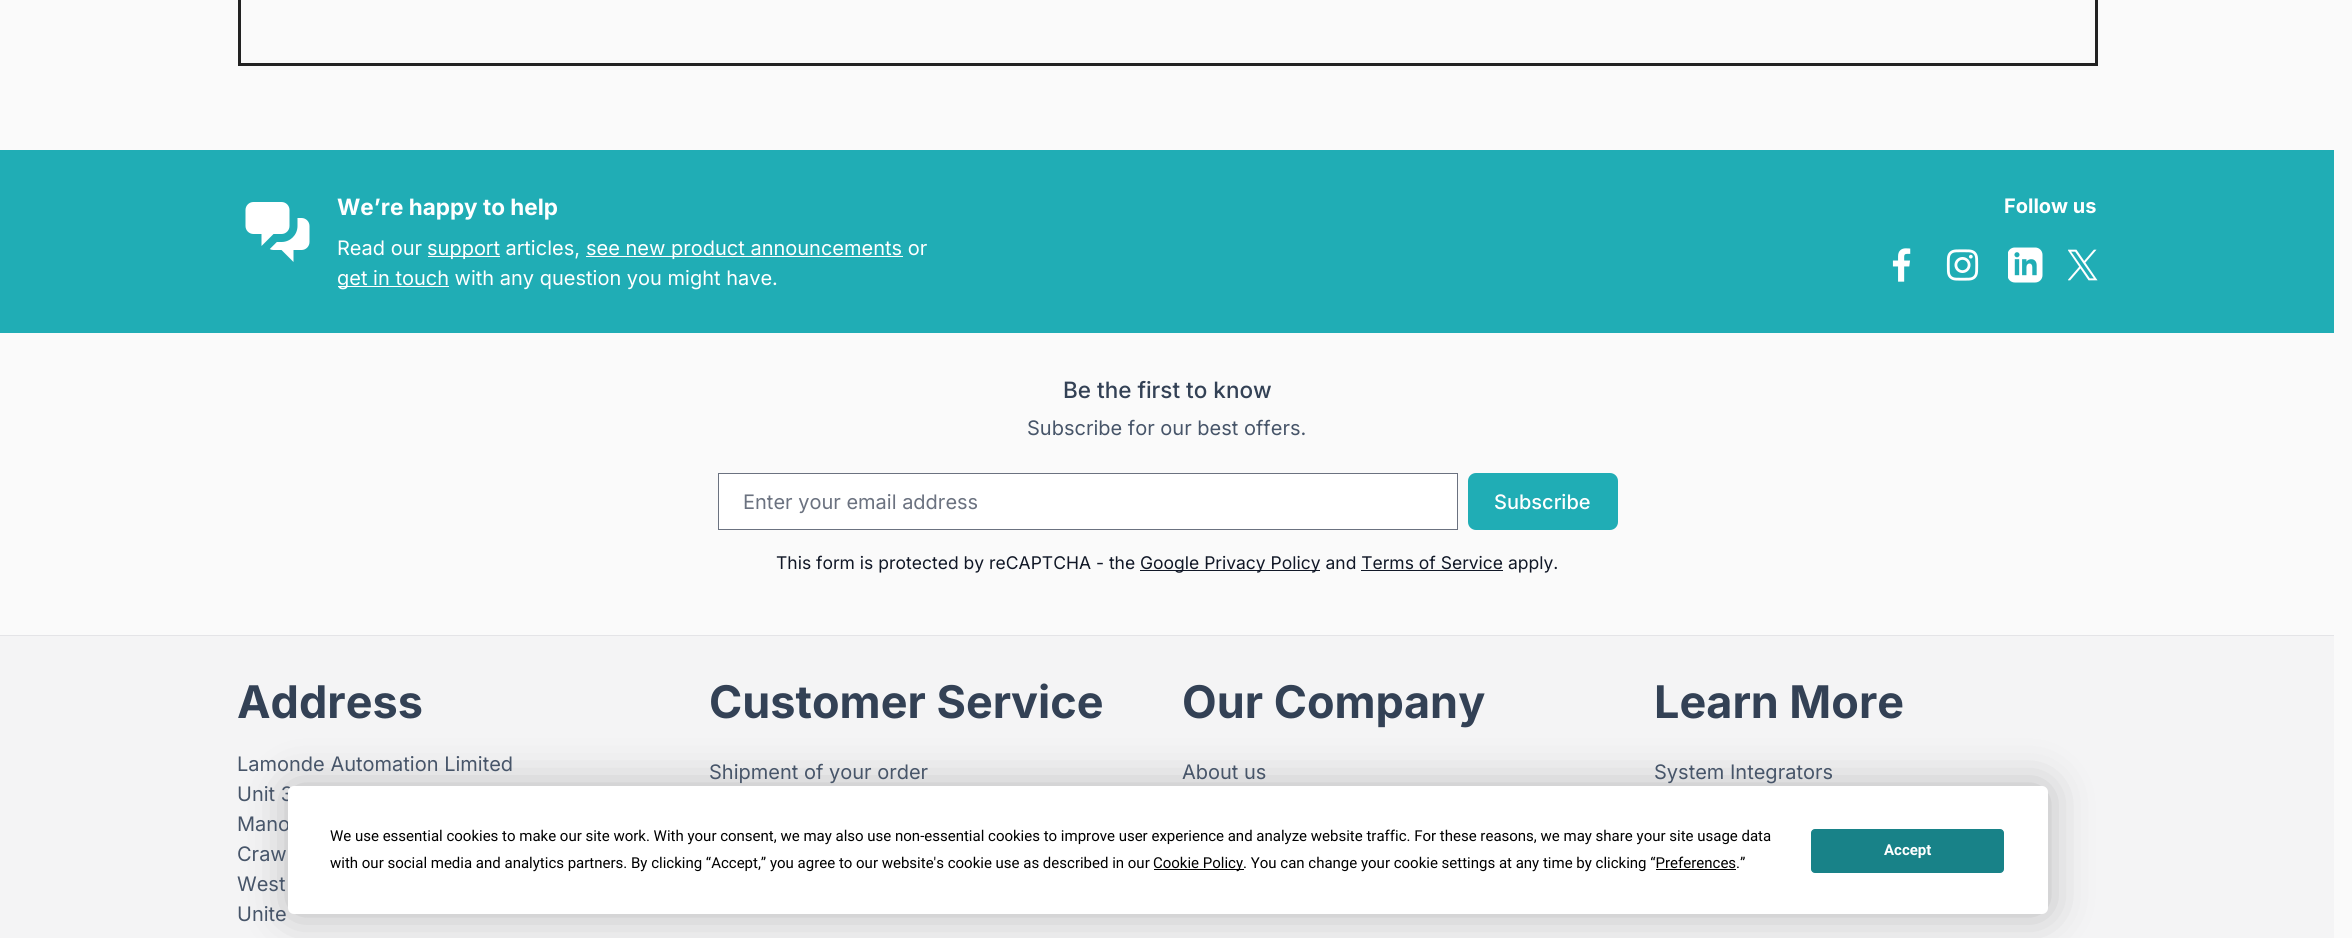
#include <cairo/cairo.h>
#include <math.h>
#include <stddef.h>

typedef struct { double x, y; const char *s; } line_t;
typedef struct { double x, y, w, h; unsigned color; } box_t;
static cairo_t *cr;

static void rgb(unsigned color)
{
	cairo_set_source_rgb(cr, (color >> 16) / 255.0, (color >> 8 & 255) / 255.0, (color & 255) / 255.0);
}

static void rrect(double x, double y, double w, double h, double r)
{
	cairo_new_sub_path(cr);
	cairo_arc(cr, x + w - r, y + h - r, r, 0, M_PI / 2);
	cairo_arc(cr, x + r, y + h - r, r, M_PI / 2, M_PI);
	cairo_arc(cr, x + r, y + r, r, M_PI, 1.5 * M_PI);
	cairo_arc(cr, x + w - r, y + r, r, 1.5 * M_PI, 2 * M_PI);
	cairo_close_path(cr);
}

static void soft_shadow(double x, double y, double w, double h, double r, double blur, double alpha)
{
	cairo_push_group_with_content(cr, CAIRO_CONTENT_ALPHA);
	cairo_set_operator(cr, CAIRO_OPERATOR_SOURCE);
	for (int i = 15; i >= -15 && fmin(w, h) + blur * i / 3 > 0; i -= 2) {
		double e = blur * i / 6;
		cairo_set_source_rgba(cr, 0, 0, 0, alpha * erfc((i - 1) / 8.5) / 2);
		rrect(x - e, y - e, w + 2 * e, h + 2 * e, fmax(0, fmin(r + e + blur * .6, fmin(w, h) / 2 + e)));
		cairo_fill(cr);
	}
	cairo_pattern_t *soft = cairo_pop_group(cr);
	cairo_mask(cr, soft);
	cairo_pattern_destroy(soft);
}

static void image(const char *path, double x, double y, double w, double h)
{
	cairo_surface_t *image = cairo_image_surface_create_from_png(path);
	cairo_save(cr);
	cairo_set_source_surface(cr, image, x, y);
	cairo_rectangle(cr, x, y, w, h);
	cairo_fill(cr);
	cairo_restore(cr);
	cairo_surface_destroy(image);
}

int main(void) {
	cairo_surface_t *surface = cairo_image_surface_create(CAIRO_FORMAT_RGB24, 2352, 938);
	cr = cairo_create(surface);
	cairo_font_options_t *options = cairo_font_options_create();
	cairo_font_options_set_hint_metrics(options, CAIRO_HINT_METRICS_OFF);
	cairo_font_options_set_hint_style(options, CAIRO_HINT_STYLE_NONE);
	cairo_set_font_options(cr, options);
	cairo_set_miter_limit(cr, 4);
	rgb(0xfafafa);
	cairo_paint(cr);
	{
		static const box_t items[] = {
			{238, 63, 1860, 3, 0x222222},
			{238, 0, 3, 65, 0x222222},
			{2095, 0, 3, 63, 0x222222},
			{0, 150, 2334, 183, 0x20adb5},
		};
		for (size_t i = 0; i < sizeof items / sizeof *items; i++) {
			rgb(items[i].color);
			cairo_rectangle(cr, items[i].x, items[i].y, items[i].w, items[i].h);
			cairo_fill(cr);
		}
	}
	image("img/1.png", 245, 202, 65, 60);
	{
		static const box_t items[] = {
			{428, 256, 72, 1, 0xffffff},
			{586, 256, 317, 1, 0xffffff},
			{338, 286, 111, 1, 0xffffff},
		};
		for (size_t i = 0; i < sizeof items / sizeof *items; i++) {
			rgb(items[i].color);
			cairo_rectangle(cr, items[i].x, items[i].y, items[i].w, items[i].h);
			cairo_fill(cr);
		}
	}
	image("img/2.png", 1892, 248, 19, 34);
	image("img/3.png", 1946, 249, 33, 32);
	image("img/4.png", 2008, 247, 35, 36);
	image("img/5.png", 2068, 249, 30, 32);
	cairo_rectangle(cr, 718.5, 473.5, 739, 56);
	cairo_fill_preserve(cr);
	rgb(0x6b7280);
	cairo_set_line_width(cr, 1);
	cairo_stroke(cr);
	rgb(0x20adb5);
	rrect(1468, 473, 150, 57, 8);
	cairo_fill(cr);
	{
		static const box_t items[] = {
			{1140, 570, 180, 1, 0x111827},
			{1361, 570, 142, 1, 0x111827},
			{0, 636, 2334, 302, 0xf4f4f5},
			{0, 635, 2334, 1, 0xe4e4e7},
		};
		for (size_t i = 0; i < sizeof items / sizeof *items; i++) {
			rgb(items[i].color);
			cairo_rectangle(cr, items[i].x, items[i].y, items[i].w, items[i].h);
			cairo_fill(cr);
		}
	}
	rgb(0x000000);
	soft_shadow(288, 786, 1760, 128, 6, 22, 0.25);
	cairo_select_font_face(cr, "Inter", CAIRO_FONT_SLANT_NORMAL, CAIRO_FONT_WEIGHT_BOLD);
	cairo_set_font_size(cr, 22.5);
	rgb(0xffffff);
	cairo_move_to(cr, 337, 215);
	cairo_show_text(cr, "We’re happy to help");
	cairo_select_font_face(cr, "Inter", CAIRO_FONT_SLANT_NORMAL, CAIRO_FONT_WEIGHT_NORMAL);
	cairo_set_font_size(cr, 20);
	{
		static const line_t items[] = {
			{337, 255, "Read our"},
			{427, 255, "support articles,"},
			{586, 255, "see new product announcements or"},
			{337, 285, "get in touch with any question you might have."},
		};
		for (size_t i = 0; i < sizeof items / sizeof *items; i++) {
			cairo_move_to(cr, items[i].x, items[i].y);
			cairo_show_text(cr, items[i].s);
		}
	}
	cairo_select_font_face(cr, "Inter", CAIRO_FONT_SLANT_NORMAL, CAIRO_FONT_WEIGHT_BOLD);
	cairo_move_to(cr, 2004, 213);
	cairo_show_text(cr, "Follow us");
	cairo_select_font_face(cr, "Inter Medium", CAIRO_FONT_SLANT_NORMAL, CAIRO_FONT_WEIGHT_NORMAL);
	cairo_set_font_size(cr, 22.5);
	rgb(0x334155);
	cairo_move_to(cr, 1063, 398);
	cairo_show_text(cr, "Be the first to know");
	cairo_select_font_face(cr, "Inter", CAIRO_FONT_SLANT_NORMAL, CAIRO_FONT_WEIGHT_NORMAL);
	cairo_set_font_size(cr, 20);
	rgb(0x475569);
	cairo_move_to(cr, 1027, 435);
	cairo_show_text(cr, "Subscribe for our best offers.");
	rgb(0x6b7280);
	cairo_move_to(cr, 743, 509);
	cairo_show_text(cr, "Enter your email address");
	cairo_select_font_face(cr, "Inter Medium", CAIRO_FONT_SLANT_NORMAL, CAIRO_FONT_WEIGHT_NORMAL);
	rgb(0xffffff);
	cairo_move_to(cr, 1494, 509);
	cairo_show_text(cr, "Subscribe");
	cairo_select_font_face(cr, "Inter", CAIRO_FONT_SLANT_NORMAL, CAIRO_FONT_WEIGHT_NORMAL);
	cairo_set_font_size(cr, 17.5);
	rgb(0x111827);
	cairo_move_to(cr, 776, 569);
	cairo_show_text(cr, "This form is protected by reCAPTCHA - the");
	cairo_move_to(cr, 1140, 569);
	cairo_show_text(cr, "Google Privacy Policy and Terms of Service apply.");
	cairo_select_font_face(cr, "Inter", CAIRO_FONT_SLANT_NORMAL, CAIRO_FONT_WEIGHT_BOLD);
	cairo_set_font_size(cr, 45);
	rgb(0x334155);
	cairo_move_to(cr, 237, 718);
	cairo_show_text(cr, "Address");
	cairo_select_font_face(cr, "Inter", CAIRO_FONT_SLANT_NORMAL, CAIRO_FONT_WEIGHT_NORMAL);
	cairo_set_font_size(cr, 20);
	rgb(0x475569);
	{
		static const line_t items[] = {
			{237, 771, "Lamonde Automation Limited"},
			{237, 801, "Unit 3"},
			{237, 831, "Mano"},
			{237, 861, "Craw"},
			{237, 891, "West"},
			{237, 921, "Unite"},
		};
		for (size_t i = 0; i < sizeof items / sizeof *items; i++) {
			cairo_move_to(cr, items[i].x, items[i].y);
			cairo_show_text(cr, items[i].s);
		}
	}
	cairo_select_font_face(cr, "Inter", CAIRO_FONT_SLANT_NORMAL, CAIRO_FONT_WEIGHT_BOLD);
	cairo_set_font_size(cr, 45);
	rgb(0x334155);
	cairo_move_to(cr, 709, 718);
	cairo_show_text(cr, "Customer Service");
	cairo_select_font_face(cr, "Inter", CAIRO_FONT_SLANT_NORMAL, CAIRO_FONT_WEIGHT_NORMAL);
	cairo_set_font_size(cr, 20);
	rgb(0x475569);
	cairo_move_to(cr, 709, 779);
	cairo_show_text(cr, "Shipment of your order");
	cairo_select_font_face(cr, "Inter", CAIRO_FONT_SLANT_NORMAL, CAIRO_FONT_WEIGHT_BOLD);
	cairo_set_font_size(cr, 45);
	rgb(0x334155);
	cairo_move_to(cr, 1182, 718);
	cairo_show_text(cr, "Our Company");
	cairo_select_font_face(cr, "Inter", CAIRO_FONT_SLANT_NORMAL, CAIRO_FONT_WEIGHT_NORMAL);
	cairo_set_font_size(cr, 20);
	rgb(0x475569);
	cairo_move_to(cr, 1182, 779);
	cairo_show_text(cr, "About us");
	cairo_select_font_face(cr, "Inter", CAIRO_FONT_SLANT_NORMAL, CAIRO_FONT_WEIGHT_BOLD);
	cairo_set_font_size(cr, 45);
	rgb(0x334155);
	cairo_move_to(cr, 1654, 718);
	cairo_show_text(cr, "Learn More");
	cairo_select_font_face(cr, "Inter", CAIRO_FONT_SLANT_NORMAL, CAIRO_FONT_WEIGHT_NORMAL);
	cairo_set_font_size(cr, 20);
	rgb(0x475569);
	cairo_move_to(cr, 1654, 779);
	cairo_show_text(cr, "System Integrators");
	rgb(0xffffff);
	rrect(288, 786, 1760, 128, 6);
	cairo_fill(cr);
	cairo_select_font_face(cr, "Roboto", CAIRO_FONT_SLANT_NORMAL, CAIRO_FONT_WEIGHT_NORMAL);
	cairo_set_font_size(cr, 15);
	rgb(0x000000);
	cairo_move_to(cr, 330, 841);
	cairo_show_text(cr, "We use essential cookies to make our site work. With your consent, we may also use non-essential cookies to improve user experience and analyze website traffic. For these reasons, we may share your site usage data");
	cairo_move_to(cr, 330, 868);
	cairo_show_text(cr, "with our social media and analytics partners. By clicking “Accept,” you agree to our website's cookie use as described in our");
	cairo_rectangle(cr, 1154, 869, 90, 1);
	cairo_fill(cr);
	cairo_move_to(cr, 1153, 868);
	cairo_show_text(cr, "Cookie Policy. You can change your cookie settings at any time by clicking “Preferences.”");
	cairo_rectangle(cr, 1656, 869, 80, 1);
	cairo_fill(cr);
	rgb(0x188288);
	rrect(1811.5, 829.5, 192, 43, 3.5);
	cairo_fill_preserve(cr);
	cairo_stroke(cr);
	cairo_select_font_face(cr, "Roboto", CAIRO_FONT_SLANT_NORMAL, CAIRO_FONT_WEIGHT_BOLD);
	rgb(0xffffff);
	cairo_move_to(cr, 1884, 855);
	cairo_show_text(cr, "Accept");
	cairo_surface_write_to_png(surface, "page.png");
	cairo_font_options_destroy(options);
	cairo_destroy(cr);
	cairo_surface_destroy(surface);
	return 0;
}
